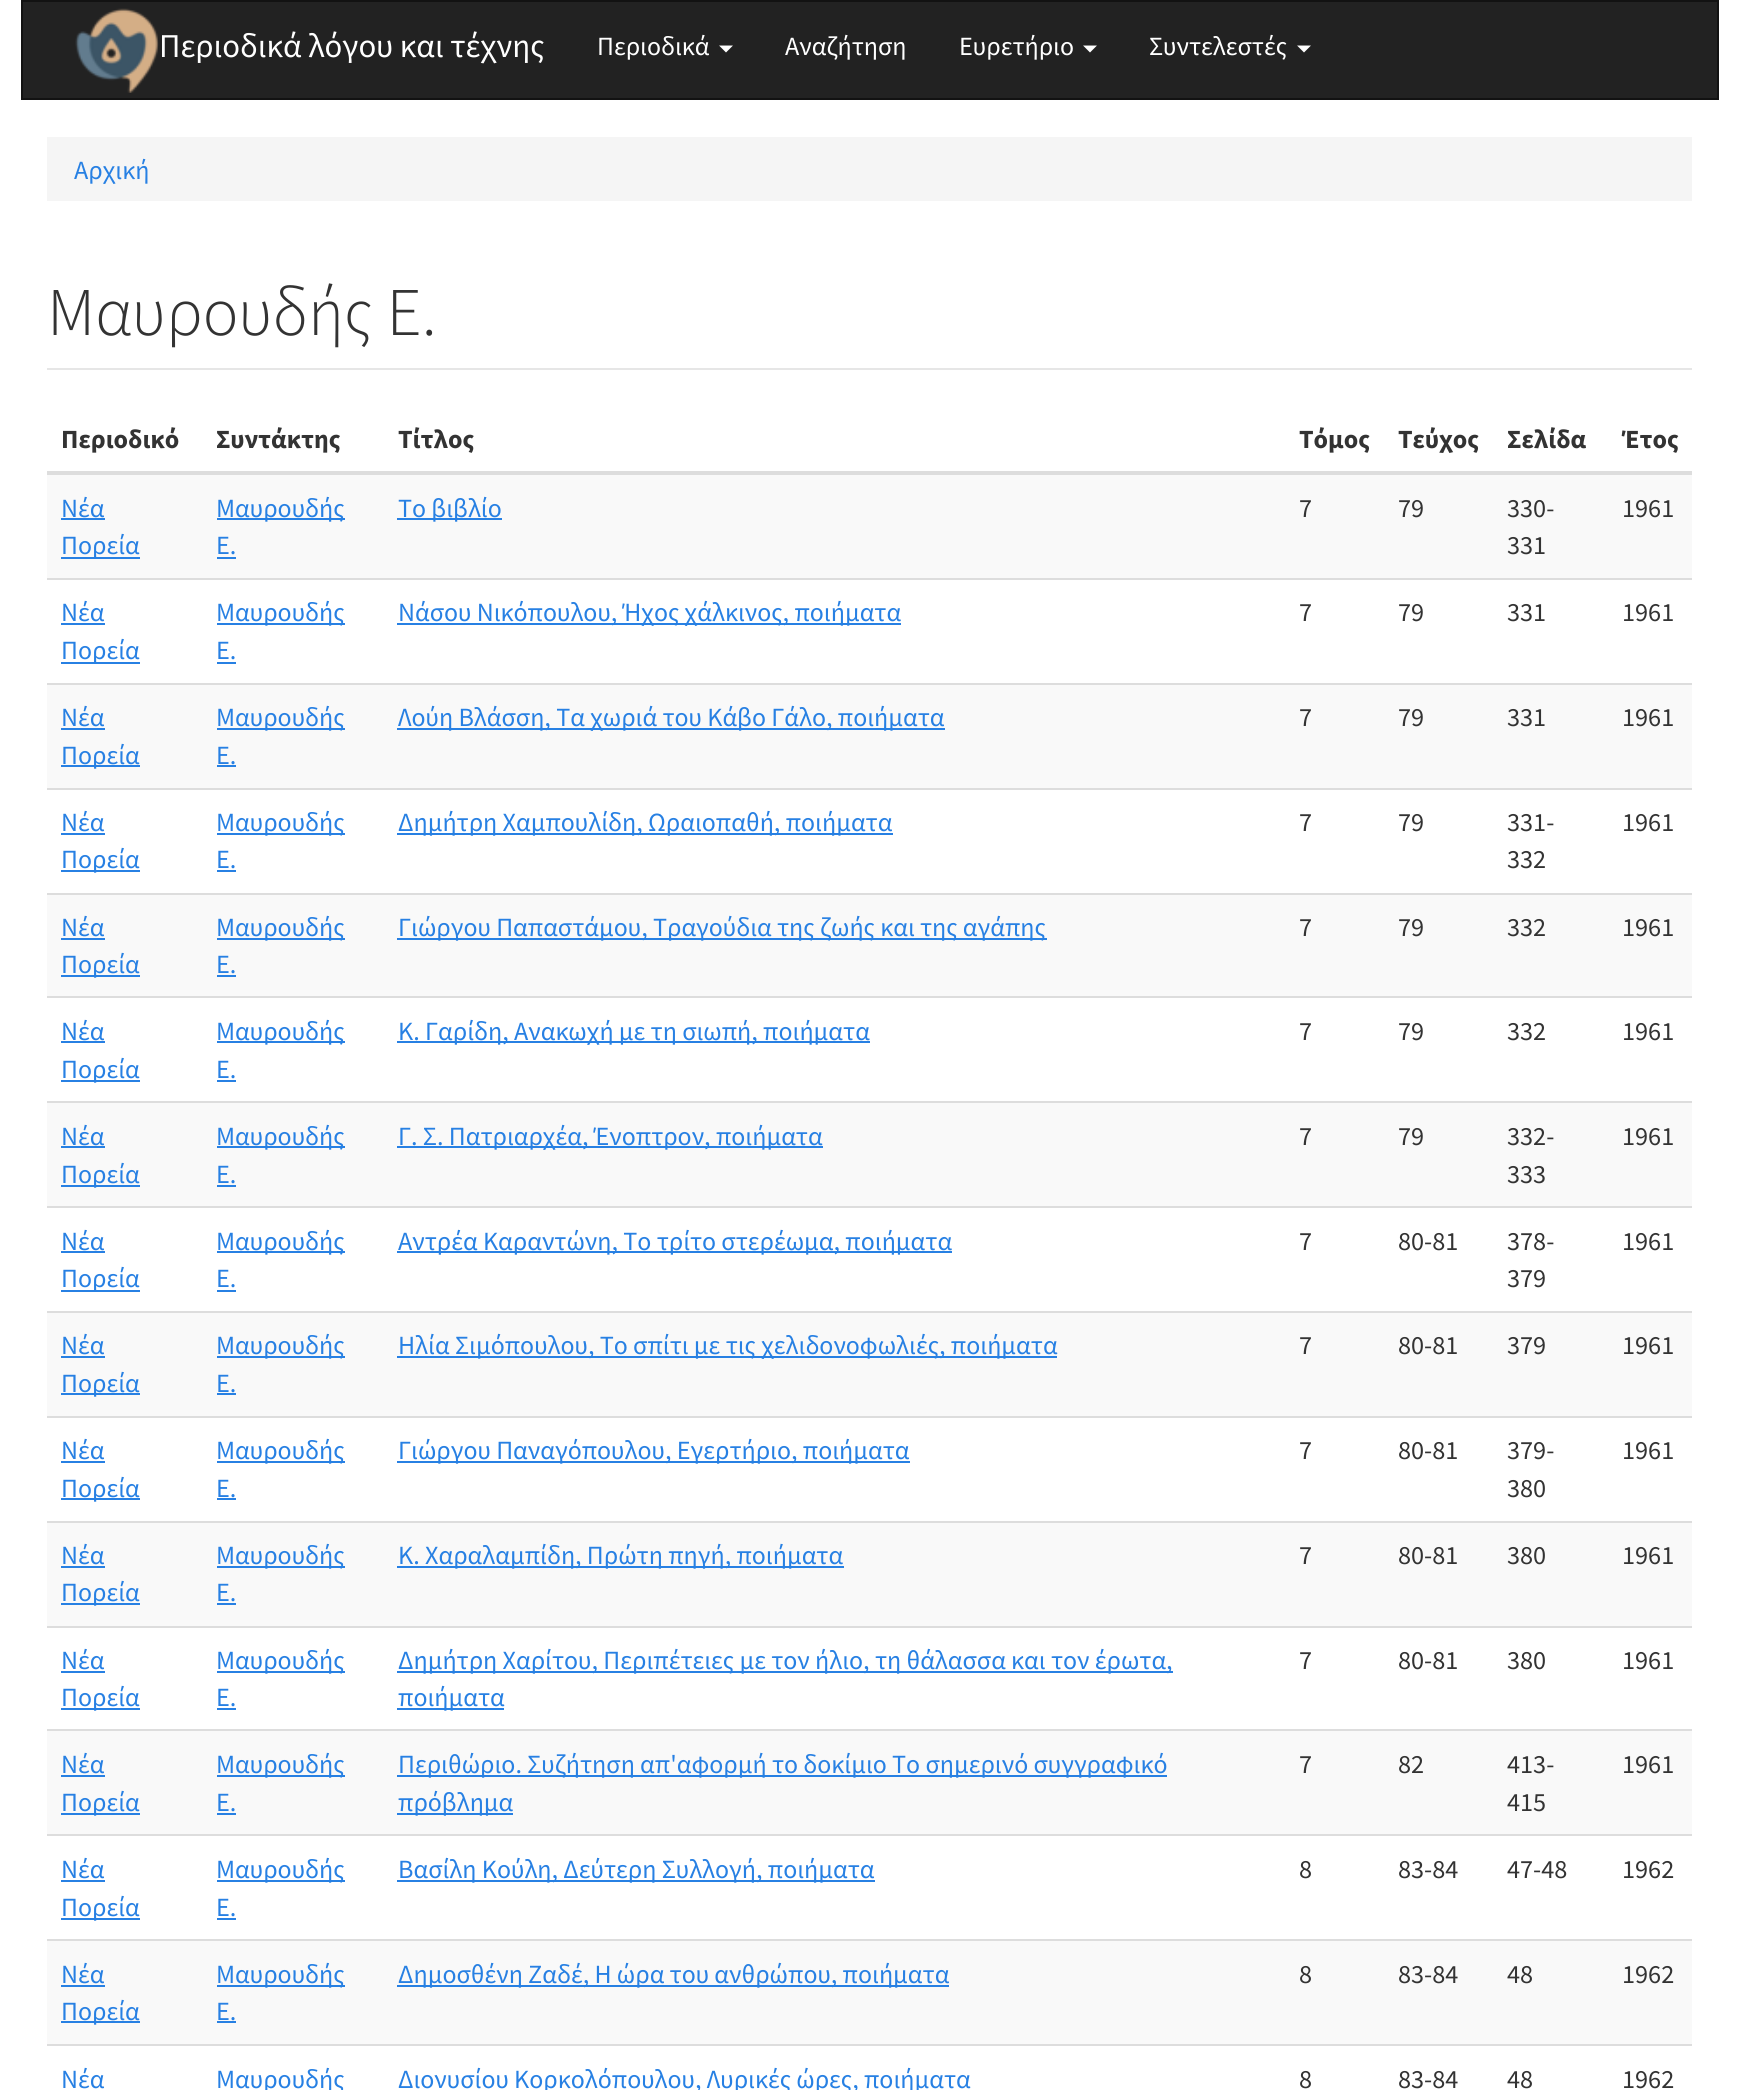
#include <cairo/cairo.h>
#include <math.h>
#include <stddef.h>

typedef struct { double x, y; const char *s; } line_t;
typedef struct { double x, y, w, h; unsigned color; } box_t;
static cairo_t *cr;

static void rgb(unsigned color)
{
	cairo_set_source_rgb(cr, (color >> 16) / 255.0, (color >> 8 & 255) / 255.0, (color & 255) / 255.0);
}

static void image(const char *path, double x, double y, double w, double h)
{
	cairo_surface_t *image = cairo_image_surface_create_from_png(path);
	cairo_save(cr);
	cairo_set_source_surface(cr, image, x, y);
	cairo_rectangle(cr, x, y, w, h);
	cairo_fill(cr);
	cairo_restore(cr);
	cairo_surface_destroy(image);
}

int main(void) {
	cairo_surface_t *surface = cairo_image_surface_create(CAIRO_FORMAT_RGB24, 1738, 2090);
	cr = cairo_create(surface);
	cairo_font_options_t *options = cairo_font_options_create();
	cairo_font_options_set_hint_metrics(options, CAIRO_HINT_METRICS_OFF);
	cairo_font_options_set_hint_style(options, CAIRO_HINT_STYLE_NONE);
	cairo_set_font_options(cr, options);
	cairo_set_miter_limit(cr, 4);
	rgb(0xffffff);
	cairo_paint(cr);
	rgb(0x222222);
	cairo_rectangle(cr, 22, 1, 1696, 98);
	cairo_fill_preserve(cr);
	rgb(0x121212);
	cairo_stroke(cr);
	image("img/1.png", 75, 8, 84, 85);
	rgb(0xffffff);
	cairo_new_path(cr);
	cairo_move_to(cr, 719, 45.5);
	cairo_line_to(cr, 733, 45.5);
	cairo_line_to(cr, 726, 52.5);
	cairo_close_path(cr);
	cairo_fill(cr);
	cairo_new_path(cr);
	cairo_move_to(cr, 1083, 45.5);
	cairo_line_to(cr, 1097, 45.5);
	cairo_line_to(cr, 1090, 52.5);
	cairo_close_path(cr);
	cairo_fill(cr);
	cairo_new_path(cr);
	cairo_move_to(cr, 1297, 45.5);
	cairo_line_to(cr, 1311, 45.5);
	cairo_line_to(cr, 1304, 52.5);
	cairo_close_path(cr);
	cairo_fill(cr);
	{
		static const box_t items[] = {
			{47, 137, 1645, 64, 0xf5f5f5},
			{47, 368, 1645, 2, 0xe6e6e6},
			{47, 471, 1645, 4, 0xdddddd},
			{47, 475, 1645, 103, 0xf9f9f9},
			{61, 518, 44, 2, 0x2780e3},
			{61, 557, 79, 2, 0x2780e3},
			{217, 518, 128, 2, 0x2780e3},
			{217, 557, 19, 2, 0x2780e3},
			{397, 518, 105, 2, 0x2780e3},
			{61, 623, 44, 2, 0x2780e3},
			{61, 662, 79, 2, 0x2780e3},
			{217, 623, 128, 2, 0x2780e3},
			{217, 662, 19, 2, 0x2780e3},
			{397, 623, 504, 2, 0x2780e3},
			{47, 578, 1645, 2, 0xdddddd},
			{47, 685, 1645, 103, 0xf9f9f9},
			{61, 728, 44, 2, 0x2780e3},
			{61, 765, 79, 2, 0x2780e3},
			{217, 728, 128, 2, 0x2780e3},
			{217, 765, 19, 2, 0x2780e3},
			{397, 728, 548, 2, 0x2780e3},
			{47, 683, 1645, 2, 0xdddddd},
			{61, 833, 44, 2, 0x2780e3},
			{61, 870, 79, 2, 0x2780e3},
			{217, 833, 128, 2, 0x2780e3},
			{217, 870, 19, 2, 0x2780e3},
			{397, 833, 496, 2, 0x2780e3},
			{47, 788, 1645, 2, 0xdddddd},
			{47, 895, 1645, 101, 0xf9f9f9},
			{61, 938, 44, 2, 0x2780e3},
			{61, 975, 79, 2, 0x2780e3},
			{217, 938, 128, 2, 0x2780e3},
			{217, 975, 19, 2, 0x2780e3},
			{397, 938, 650, 2, 0x2780e3},
			{47, 893, 1645, 2, 0xdddddd},
			{61, 1041, 44, 2, 0x2780e3},
			{61, 1080, 79, 2, 0x2780e3},
			{217, 1041, 128, 2, 0x2780e3},
			{217, 1080, 19, 2, 0x2780e3},
			{397, 1041, 473, 2, 0x2780e3},
			{47, 996, 1645, 2, 0xdddddd},
			{47, 1103, 1645, 103, 0xf9f9f9},
			{61, 1146, 44, 2, 0x2780e3},
			{61, 1185, 79, 2, 0x2780e3},
			{217, 1146, 128, 2, 0x2780e3},
			{217, 1185, 19, 2, 0x2780e3},
			{397, 1146, 426, 2, 0x2780e3},
			{47, 1101, 1645, 2, 0xdddddd},
			{61, 1251, 44, 2, 0x2780e3},
			{61, 1290, 79, 2, 0x2780e3},
			{217, 1251, 128, 2, 0x2780e3},
			{217, 1290, 19, 2, 0x2780e3},
			{397, 1251, 555, 2, 0x2780e3},
			{47, 1206, 1645, 2, 0xdddddd},
			{47, 1313, 1645, 103, 0xf9f9f9},
			{61, 1356, 44, 2, 0x2780e3},
			{61, 1393, 79, 2, 0x2780e3},
			{217, 1356, 128, 2, 0x2780e3},
			{217, 1393, 19, 2, 0x2780e3},
			{397, 1356, 660, 2, 0x2780e3},
			{47, 1311, 1645, 2, 0xdddddd},
			{61, 1461, 44, 2, 0x2780e3},
			{61, 1498, 79, 2, 0x2780e3},
			{217, 1461, 128, 2, 0x2780e3},
			{217, 1498, 19, 2, 0x2780e3},
			{397, 1461, 513, 2, 0x2780e3},
			{47, 1416, 1645, 2, 0xdddddd},
			{47, 1523, 1645, 103, 0xf9f9f9},
			{61, 1566, 44, 2, 0x2780e3},
			{61, 1603, 79, 2, 0x2780e3},
			{217, 1566, 128, 2, 0x2780e3},
			{217, 1603, 19, 2, 0x2780e3},
			{397, 1566, 447, 2, 0x2780e3},
			{47, 1521, 1645, 2, 0xdddddd},
			{61, 1671, 44, 2, 0x2780e3},
			{61, 1708, 79, 2, 0x2780e3},
			{217, 1671, 128, 2, 0x2780e3},
			{217, 1708, 19, 2, 0x2780e3},
			{397, 1671, 776, 2, 0x2780e3},
			{397, 1708, 107, 2, 0x2780e3},
			{47, 1626, 1645, 2, 0xdddddd},
			{47, 1731, 1645, 103, 0xf9f9f9},
			{61, 1775, 44, 2, 0x2780e3},
			{61, 1813, 79, 2, 0x2780e3},
			{217, 1775, 128, 2, 0x2780e3},
			{217, 1813, 19, 2, 0x2780e3},
			{397, 1775, 770, 2, 0x2780e3},
			{397, 1813, 116, 2, 0x2780e3},
			{47, 1729, 1645, 2, 0xdddddd},
			{61, 1880, 44, 2, 0x2780e3},
			{61, 1918, 79, 2, 0x2780e3},
			{217, 1880, 128, 2, 0x2780e3},
			{217, 1918, 19, 2, 0x2780e3},
			{397, 1880, 478, 2, 0x2780e3},
			{47, 1834, 1645, 2, 0xdddddd},
			{47, 1941, 1645, 103, 0xf9f9f9},
			{61, 1985, 44, 2, 0x2780e3},
			{61, 2021, 79, 2, 0x2780e3},
			{217, 1985, 128, 2, 0x2780e3},
			{217, 2021, 19, 2, 0x2780e3},
			{397, 1985, 552, 2, 0x2780e3},
			{47, 1939, 1645, 2, 0xdddddd},
			{47, 2044, 1645, 2, 0xdddddd},
		};
		for (size_t i = 0; i < sizeof items / sizeof *items; i++) {
			rgb(items[i].color);
			cairo_rectangle(cr, items[i].x, items[i].y, items[i].w, items[i].h);
			cairo_fill(cr);
		}
	}
	cairo_select_font_face(cr, "Source Sans Pro", CAIRO_FONT_SLANT_NORMAL, CAIRO_FONT_WEIGHT_NORMAL);
	cairo_set_font_size(cr, 33.25);
	rgb(0xffffff);
	cairo_move_to(cr, 159, 57);
	cairo_show_text(cr, "Περιοδικά λόγου και τέχνης");
	cairo_set_font_size(cr, 26.25);
	{
		static const line_t items[] = {
			{597, 55, "Περιοδικά"},
			{785, 55, "Αναζήτηση"},
			{959, 55, "Ευρετήριο"},
			{1149, 55, "Συντελεστές"},
		};
		for (size_t i = 0; i < sizeof items / sizeof *items; i++) {
			cairo_move_to(cr, items[i].x, items[i].y);
			cairo_show_text(cr, items[i].s);
		}
	}
	rgb(0x2780e3);
	cairo_move_to(cr, 74, 179);
	cairo_show_text(cr, "Αρχική");
	cairo_select_font_face(cr, "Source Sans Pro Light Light", CAIRO_FONT_SLANT_NORMAL, CAIRO_FONT_WEIGHT_NORMAL);
	cairo_set_font_size(cr, 68.25);
	rgb(0x333333);
	cairo_move_to(cr, 47, 335);
	cairo_show_text(cr, "Μαυρουδής Ε.");
	cairo_select_font_face(cr, "Source Sans Pro", CAIRO_FONT_SLANT_NORMAL, CAIRO_FONT_WEIGHT_BOLD);
	cairo_set_font_size(cr, 26.25);
	{
		static const line_t items[] = {
			{61, 448, "Περιοδικό"},
			{216, 448, "Συντάκτης"},
			{398, 448, "Τίτλος"},
			{1299, 448, "Τόμος"},
			{1398, 448, "Τεύχος"},
			{1507, 448, "Σελίδα"},
			{1622, 448, "Έτος"},
		};
		for (size_t i = 0; i < sizeof items / sizeof *items; i++) {
			cairo_move_to(cr, items[i].x, items[i].y);
			cairo_show_text(cr, items[i].s);
		}
	}
	cairo_select_font_face(cr, "Source Sans Pro", CAIRO_FONT_SLANT_NORMAL, CAIRO_FONT_WEIGHT_NORMAL);
	rgb(0x2780e3);
	{
		static const line_t items[] = {
			{61, 517, "Νέα"},
			{61, 554, "Πορεία"},
			{216, 517, "Μαυρουδής"},
			{216, 554, "Ε."},
			{398, 517, "Το βιβλίο"},
		};
		for (size_t i = 0; i < sizeof items / sizeof *items; i++) {
			cairo_move_to(cr, items[i].x, items[i].y);
			cairo_show_text(cr, items[i].s);
		}
	}
	rgb(0x333333);
	{
		static const line_t items[] = {
			{1299, 517, "7"},
			{1398, 517, "79"},
			{1507, 517, "330-"},
			{1507, 554, "331"},
			{1622, 517, "1961"},
		};
		for (size_t i = 0; i < sizeof items / sizeof *items; i++) {
			cairo_move_to(cr, items[i].x, items[i].y);
			cairo_show_text(cr, items[i].s);
		}
	}
	rgb(0x2780e3);
	{
		static const line_t items[] = {
			{61, 621, "Νέα"},
			{61, 659, "Πορεία"},
			{216, 621, "Μαυρουδής"},
			{216, 659, "Ε."},
			{398, 621, "Νάσου Νικόπουλου, Ήχος χάλκινος, ποιήματα"},
		};
		for (size_t i = 0; i < sizeof items / sizeof *items; i++) {
			cairo_move_to(cr, items[i].x, items[i].y);
			cairo_show_text(cr, items[i].s);
		}
	}
	rgb(0x333333);
	{
		static const line_t items[] = {
			{1299, 621, "7"},
			{1398, 621, "79"},
			{1507, 621, "331"},
			{1622, 621, "1961"},
		};
		for (size_t i = 0; i < sizeof items / sizeof *items; i++) {
			cairo_move_to(cr, items[i].x, items[i].y);
			cairo_show_text(cr, items[i].s);
		}
	}
	rgb(0x2780e3);
	{
		static const line_t items[] = {
			{61, 726, "Νέα"},
			{61, 764, "Πορεία"},
			{216, 726, "Μαυρουδής"},
			{216, 764, "Ε."},
			{398, 726, "Λούη Βλάσση, Τα χωριά του Κάβο Γάλο, ποιήματα"},
		};
		for (size_t i = 0; i < sizeof items / sizeof *items; i++) {
			cairo_move_to(cr, items[i].x, items[i].y);
			cairo_show_text(cr, items[i].s);
		}
	}
	rgb(0x333333);
	{
		static const line_t items[] = {
			{1299, 726, "7"},
			{1398, 726, "79"},
			{1507, 726, "331"},
			{1622, 726, "1961"},
		};
		for (size_t i = 0; i < sizeof items / sizeof *items; i++) {
			cairo_move_to(cr, items[i].x, items[i].y);
			cairo_show_text(cr, items[i].s);
		}
	}
	rgb(0x2780e3);
	{
		static const line_t items[] = {
			{61, 831, "Νέα"},
			{61, 868, "Πορεία"},
			{216, 831, "Μαυρουδής"},
			{216, 868, "Ε."},
			{398, 831, "Δημήτρη Χαμπουλίδη, Ωραιοπαθή, ποιήματα"},
		};
		for (size_t i = 0; i < sizeof items / sizeof *items; i++) {
			cairo_move_to(cr, items[i].x, items[i].y);
			cairo_show_text(cr, items[i].s);
		}
	}
	rgb(0x333333);
	{
		static const line_t items[] = {
			{1299, 831, "7"},
			{1398, 831, "79"},
			{1507, 831, "331-"},
			{1507, 868, "332"},
			{1622, 831, "1961"},
		};
		for (size_t i = 0; i < sizeof items / sizeof *items; i++) {
			cairo_move_to(cr, items[i].x, items[i].y);
			cairo_show_text(cr, items[i].s);
		}
	}
	rgb(0x2780e3);
	{
		static const line_t items[] = {
			{61, 936, "Νέα"},
			{61, 973, "Πορεία"},
			{216, 936, "Μαυρουδής"},
			{216, 973, "Ε."},
			{398, 936, "Γιώργου Παπαστάμου, Τραγούδια της ζωής και της αγάπης"},
		};
		for (size_t i = 0; i < sizeof items / sizeof *items; i++) {
			cairo_move_to(cr, items[i].x, items[i].y);
			cairo_show_text(cr, items[i].s);
		}
	}
	rgb(0x333333);
	{
		static const line_t items[] = {
			{1299, 936, "7"},
			{1398, 936, "79"},
			{1507, 936, "332"},
			{1622, 936, "1961"},
		};
		for (size_t i = 0; i < sizeof items / sizeof *items; i++) {
			cairo_move_to(cr, items[i].x, items[i].y);
			cairo_show_text(cr, items[i].s);
		}
	}
	rgb(0x2780e3);
	{
		static const line_t items[] = {
			{61, 1040, "Νέα"},
			{61, 1078, "Πορεία"},
			{216, 1040, "Μαυρουδής"},
			{216, 1078, "Ε."},
			{398, 1040, "Κ. Γαρίδη, Ανακωχή με τη σιωπή, ποιήματα"},
		};
		for (size_t i = 0; i < sizeof items / sizeof *items; i++) {
			cairo_move_to(cr, items[i].x, items[i].y);
			cairo_show_text(cr, items[i].s);
		}
	}
	rgb(0x333333);
	{
		static const line_t items[] = {
			{1299, 1040, "7"},
			{1398, 1040, "79"},
			{1507, 1040, "332"},
			{1622, 1040, "1961"},
		};
		for (size_t i = 0; i < sizeof items / sizeof *items; i++) {
			cairo_move_to(cr, items[i].x, items[i].y);
			cairo_show_text(cr, items[i].s);
		}
	}
	rgb(0x2780e3);
	{
		static const line_t items[] = {
			{61, 1145, "Νέα"},
			{61, 1183, "Πορεία"},
			{216, 1145, "Μαυρουδής"},
			{216, 1183, "Ε."},
			{398, 1145, "Γ. Σ. Πατριαρχέα, Ένοπτρον, ποιήματα"},
		};
		for (size_t i = 0; i < sizeof items / sizeof *items; i++) {
			cairo_move_to(cr, items[i].x, items[i].y);
			cairo_show_text(cr, items[i].s);
		}
	}
	rgb(0x333333);
	{
		static const line_t items[] = {
			{1299, 1145, "7"},
			{1398, 1145, "79"},
			{1507, 1145, "332-"},
			{1507, 1183, "333"},
			{1622, 1145, "1961"},
		};
		for (size_t i = 0; i < sizeof items / sizeof *items; i++) {
			cairo_move_to(cr, items[i].x, items[i].y);
			cairo_show_text(cr, items[i].s);
		}
	}
	rgb(0x2780e3);
	{
		static const line_t items[] = {
			{61, 1250, "Νέα"},
			{61, 1287, "Πορεία"},
			{216, 1250, "Μαυρουδής"},
			{216, 1287, "Ε."},
			{398, 1250, "Αντρέα Καραντώνη, Το τρίτο στερέωμα, ποιήματα"},
		};
		for (size_t i = 0; i < sizeof items / sizeof *items; i++) {
			cairo_move_to(cr, items[i].x, items[i].y);
			cairo_show_text(cr, items[i].s);
		}
	}
	rgb(0x333333);
	{
		static const line_t items[] = {
			{1299, 1250, "7"},
			{1398, 1250, "80-81"},
			{1507, 1250, "378-"},
			{1507, 1287, "379"},
			{1622, 1250, "1961"},
		};
		for (size_t i = 0; i < sizeof items / sizeof *items; i++) {
			cairo_move_to(cr, items[i].x, items[i].y);
			cairo_show_text(cr, items[i].s);
		}
	}
	rgb(0x2780e3);
	{
		static const line_t items[] = {
			{61, 1354, "Νέα"},
			{61, 1392, "Πορεία"},
			{216, 1354, "Μαυρουδής"},
			{216, 1392, "Ε."},
			{398, 1354, "Ηλία Σιμόπουλου, Το σπίτι με τις χελιδονοφωλιές, ποιήματα"},
		};
		for (size_t i = 0; i < sizeof items / sizeof *items; i++) {
			cairo_move_to(cr, items[i].x, items[i].y);
			cairo_show_text(cr, items[i].s);
		}
	}
	rgb(0x333333);
	{
		static const line_t items[] = {
			{1299, 1354, "7"},
			{1398, 1354, "80-81"},
			{1507, 1354, "379"},
			{1622, 1354, "1961"},
		};
		for (size_t i = 0; i < sizeof items / sizeof *items; i++) {
			cairo_move_to(cr, items[i].x, items[i].y);
			cairo_show_text(cr, items[i].s);
		}
	}
	rgb(0x2780e3);
	{
		static const line_t items[] = {
			{61, 1459, "Νέα"},
			{61, 1497, "Πορεία"},
			{216, 1459, "Μαυρουδής"},
			{216, 1497, "Ε."},
			{398, 1459, "Γιώργου Παναγόπουλου, Εγερτήριο, ποιήματα"},
		};
		for (size_t i = 0; i < sizeof items / sizeof *items; i++) {
			cairo_move_to(cr, items[i].x, items[i].y);
			cairo_show_text(cr, items[i].s);
		}
	}
	rgb(0x333333);
	{
		static const line_t items[] = {
			{1299, 1459, "7"},
			{1398, 1459, "80-81"},
			{1507, 1459, "379-"},
			{1507, 1497, "380"},
			{1622, 1459, "1961"},
		};
		for (size_t i = 0; i < sizeof items / sizeof *items; i++) {
			cairo_move_to(cr, items[i].x, items[i].y);
			cairo_show_text(cr, items[i].s);
		}
	}
	rgb(0x2780e3);
	{
		static const line_t items[] = {
			{61, 1564, "Νέα"},
			{61, 1601, "Πορεία"},
			{216, 1564, "Μαυρουδής"},
			{216, 1601, "Ε."},
			{398, 1564, "Κ. Χαραλαμπίδη, Πρώτη πηγή, ποιήματα"},
		};
		for (size_t i = 0; i < sizeof items / sizeof *items; i++) {
			cairo_move_to(cr, items[i].x, items[i].y);
			cairo_show_text(cr, items[i].s);
		}
	}
	rgb(0x333333);
	{
		static const line_t items[] = {
			{1299, 1564, "7"},
			{1398, 1564, "80-81"},
			{1507, 1564, "380"},
			{1622, 1564, "1961"},
		};
		for (size_t i = 0; i < sizeof items / sizeof *items; i++) {
			cairo_move_to(cr, items[i].x, items[i].y);
			cairo_show_text(cr, items[i].s);
		}
	}
	rgb(0x2780e3);
	{
		static const line_t items[] = {
			{61, 1669, "Νέα"},
			{61, 1706, "Πορεία"},
			{216, 1669, "Μαυρουδής"},
			{216, 1706, "Ε."},
			{398, 1669, "Δημήτρη Χαρίτου, Περιπέτειες με τον ήλιο, τη θάλασσα και τον έρωτα,"},
			{398, 1706, "ποιήματα"},
		};
		for (size_t i = 0; i < sizeof items / sizeof *items; i++) {
			cairo_move_to(cr, items[i].x, items[i].y);
			cairo_show_text(cr, items[i].s);
		}
	}
	rgb(0x333333);
	{
		static const line_t items[] = {
			{1299, 1669, "7"},
			{1398, 1669, "80-81"},
			{1507, 1669, "380"},
			{1622, 1669, "1961"},
		};
		for (size_t i = 0; i < sizeof items / sizeof *items; i++) {
			cairo_move_to(cr, items[i].x, items[i].y);
			cairo_show_text(cr, items[i].s);
		}
	}
	rgb(0x2780e3);
	{
		static const line_t items[] = {
			{61, 1773, "Νέα"},
			{61, 1811, "Πορεία"},
			{216, 1773, "Μαυρουδής"},
			{216, 1811, "Ε."},
			{398, 1773, "Περιθώριο. Συζήτηση απ'αφορμή το δοκίμιο Το σημερινό συγγραφικό"},
			{398, 1811, "πρόβλημα"},
		};
		for (size_t i = 0; i < sizeof items / sizeof *items; i++) {
			cairo_move_to(cr, items[i].x, items[i].y);
			cairo_show_text(cr, items[i].s);
		}
	}
	rgb(0x333333);
	{
		static const line_t items[] = {
			{1299, 1773, "7"},
			{1398, 1773, "82"},
			{1507, 1773, "413-"},
			{1507, 1811, "415"},
			{1622, 1773, "1961"},
		};
		for (size_t i = 0; i < sizeof items / sizeof *items; i++) {
			cairo_move_to(cr, items[i].x, items[i].y);
			cairo_show_text(cr, items[i].s);
		}
	}
	rgb(0x2780e3);
	{
		static const line_t items[] = {
			{61, 1878, "Νέα"},
			{61, 1916, "Πορεία"},
			{216, 1878, "Μαυρουδής"},
			{216, 1916, "Ε."},
			{398, 1878, "Βασίλη Κούλη, Δεύτερη Συλλογή, ποιήματα"},
		};
		for (size_t i = 0; i < sizeof items / sizeof *items; i++) {
			cairo_move_to(cr, items[i].x, items[i].y);
			cairo_show_text(cr, items[i].s);
		}
	}
	rgb(0x333333);
	{
		static const line_t items[] = {
			{1299, 1878, "8"},
			{1398, 1878, "83-84"},
			{1507, 1878, "47-48"},
			{1622, 1878, "1962"},
		};
		for (size_t i = 0; i < sizeof items / sizeof *items; i++) {
			cairo_move_to(cr, items[i].x, items[i].y);
			cairo_show_text(cr, items[i].s);
		}
	}
	rgb(0x2780e3);
	{
		static const line_t items[] = {
			{61, 1983, "Νέα"},
			{61, 2020, "Πορεία"},
			{216, 1983, "Μαυρουδής"},
			{216, 2020, "Ε."},
			{398, 1983, "Δημοσθένη Ζαδέ, Η ώρα του ανθρώπου, ποιήματα"},
		};
		for (size_t i = 0; i < sizeof items / sizeof *items; i++) {
			cairo_move_to(cr, items[i].x, items[i].y);
			cairo_show_text(cr, items[i].s);
		}
	}
	rgb(0x333333);
	{
		static const line_t items[] = {
			{1299, 1983, "8"},
			{1398, 1983, "83-84"},
			{1507, 1983, "48"},
			{1622, 1983, "1962"},
		};
		for (size_t i = 0; i < sizeof items / sizeof *items; i++) {
			cairo_move_to(cr, items[i].x, items[i].y);
			cairo_show_text(cr, items[i].s);
		}
	}
	rgb(0x2780e3);
	{
		static const line_t items[] = {
			{61, 2088, "Νέα"},
			{216, 2088, "Μαυρουδής"},
			{398, 2088, "Διονυσίου Κορκολόπουλου, Λυρικές ώρες, ποιήματα"},
		};
		for (size_t i = 0; i < sizeof items / sizeof *items; i++) {
			cairo_move_to(cr, items[i].x, items[i].y);
			cairo_show_text(cr, items[i].s);
		}
	}
	rgb(0x333333);
	{
		static const line_t items[] = {
			{1299, 2088, "8"},
			{1398, 2088, "83-84"},
			{1507, 2088, "48"},
			{1622, 2088, "1962"},
		};
		for (size_t i = 0; i < sizeof items / sizeof *items; i++) {
			cairo_move_to(cr, items[i].x, items[i].y);
			cairo_show_text(cr, items[i].s);
		}
	}
	cairo_surface_write_to_png(surface, "page.png");
	cairo_font_options_destroy(options);
	cairo_destroy(cr);
	cairo_surface_destroy(surface);
	return 0;
}
